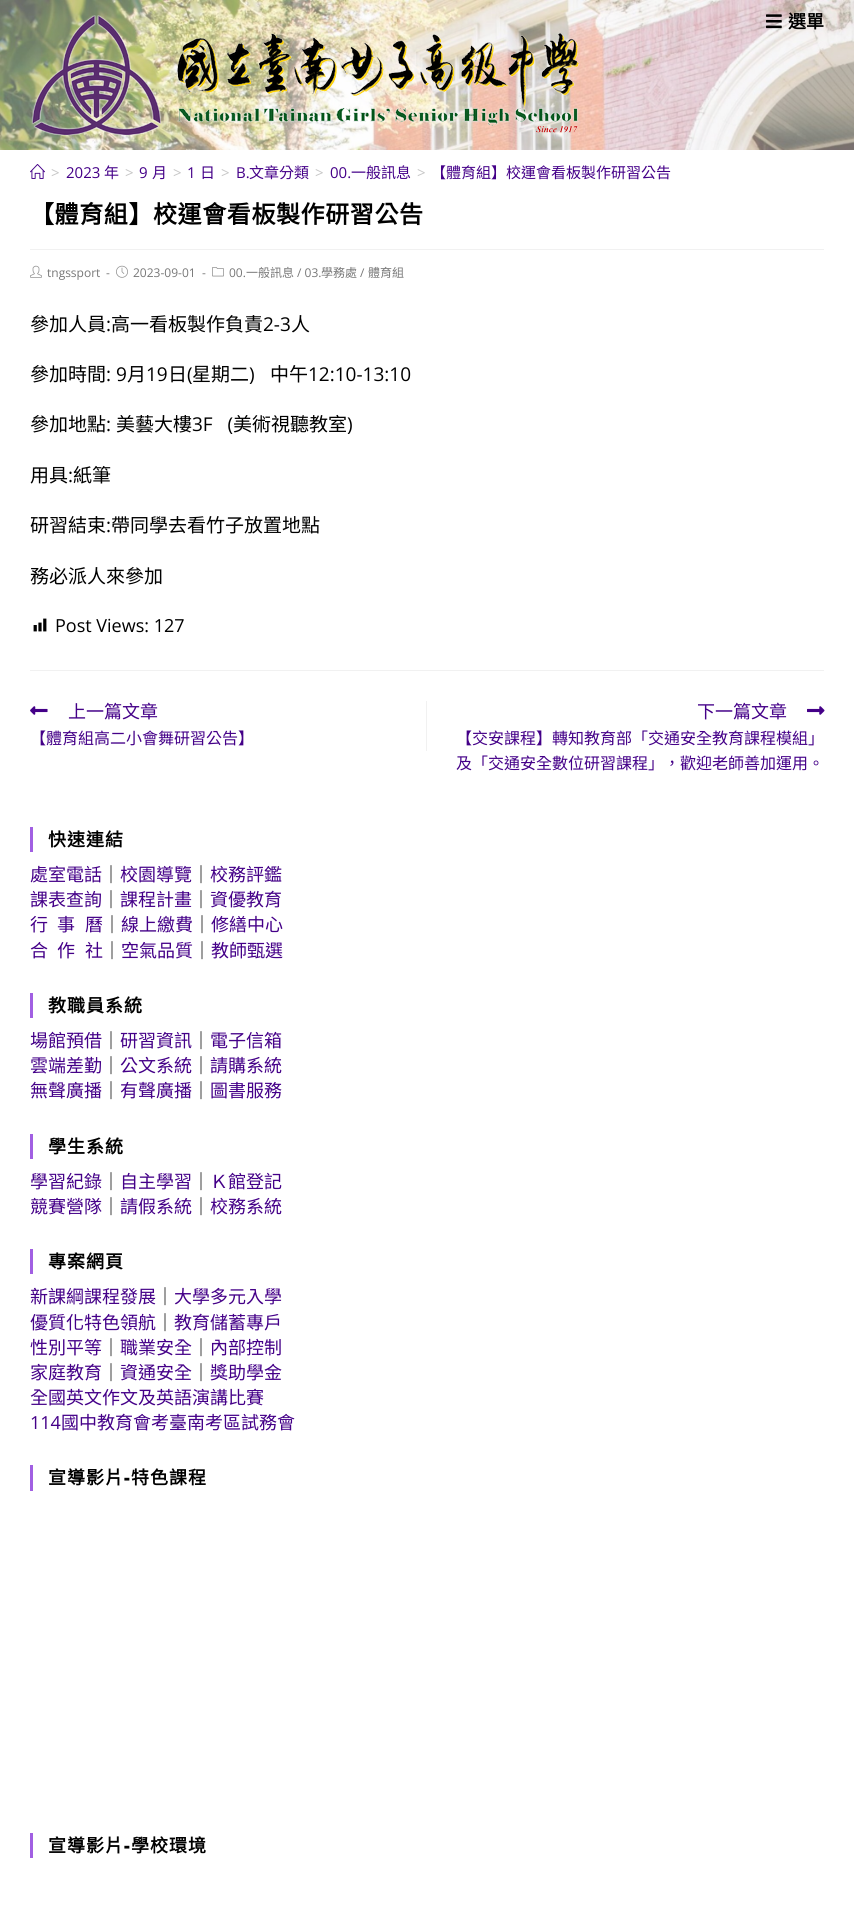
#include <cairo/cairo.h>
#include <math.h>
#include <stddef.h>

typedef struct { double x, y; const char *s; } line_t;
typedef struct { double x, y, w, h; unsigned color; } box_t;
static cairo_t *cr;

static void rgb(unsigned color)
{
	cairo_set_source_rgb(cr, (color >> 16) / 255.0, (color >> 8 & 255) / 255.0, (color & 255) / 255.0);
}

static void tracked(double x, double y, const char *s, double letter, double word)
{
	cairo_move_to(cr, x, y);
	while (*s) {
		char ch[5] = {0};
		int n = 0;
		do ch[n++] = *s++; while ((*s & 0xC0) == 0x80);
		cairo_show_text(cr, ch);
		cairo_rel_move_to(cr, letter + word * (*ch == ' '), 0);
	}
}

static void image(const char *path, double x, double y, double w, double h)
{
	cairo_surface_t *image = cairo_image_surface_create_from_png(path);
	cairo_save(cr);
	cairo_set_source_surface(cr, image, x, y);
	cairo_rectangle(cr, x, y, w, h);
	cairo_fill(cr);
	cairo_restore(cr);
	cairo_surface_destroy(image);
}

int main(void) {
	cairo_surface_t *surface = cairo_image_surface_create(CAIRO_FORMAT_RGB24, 854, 1908);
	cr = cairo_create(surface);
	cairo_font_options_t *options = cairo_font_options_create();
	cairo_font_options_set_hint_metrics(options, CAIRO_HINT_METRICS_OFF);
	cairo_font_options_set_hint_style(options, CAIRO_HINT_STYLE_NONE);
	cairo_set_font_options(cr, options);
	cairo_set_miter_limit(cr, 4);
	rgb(0xffffff);
	cairo_paint(cr);
	image("img/1.png", 0, 0, 854, 150);
	image("img/2.png", 30, 15, 550, 122);
	image("img/3.png", 766, 14, 16, 15);
	image("img/4.png", 30, 164, 15, 15);
	rgb(0xf1f1f1);
	cairo_rectangle(cr, 30, 249, 794, 1);
	cairo_fill(cr);
	image("img/5.png", 30, 265, 12, 13);
	image("img/6.png", 116, 265, 12, 13);
	image("img/7.png", 212, 267, 12, 10);
	image("img/8.png", 33, 618, 14, 14);
	cairo_rectangle(cr, 30, 670, 794, 1);
	cairo_fill(cr);
	cairo_rectangle(cr, 426, 701, 1, 50);
	cairo_fill(cr);
	image("img/9.png", 30, 706, 18, 9);
	image("img/10.png", 807, 706, 18, 9);
	{
		static const box_t items[] = {
			{30, 827, 3, 25, 0xa15fe2},
			{30, 993, 3, 25, 0xa15fe2},
			{30, 1134, 3, 25, 0xa15fe2},
			{30, 1249, 3, 25, 0xa15fe2},
			{30, 1465, 3, 26, 0xa15fe2},
			{30, 1833, 3, 25, 0xa15fe2},
		};
		for (size_t i = 0; i < sizeof items / sizeof *items; i++) {
			rgb(items[i].color);
			cairo_rectangle(cr, items[i].x, items[i].y, items[i].w, items[i].h);
			cairo_fill(cr);
		}
	}
	cairo_select_font_face(cr, "Noto Sans CJK TC", CAIRO_FONT_SLANT_NORMAL, CAIRO_FONT_WEIGHT_BOLD);
	cairo_set_font_size(cr, 18);
	rgb(0x000000);
	cairo_move_to(cr, 788, 28);
	cairo_show_text(cr, "選單");
	cairo_select_font_face(cr, "Open Sans", CAIRO_FONT_SLANT_NORMAL, CAIRO_FONT_WEIGHT_NORMAL);
	cairo_set_font_size(cr, 15);
	rgb(0xc6c6c6);
	cairo_move_to(cr, 51, 178);
	cairo_show_text(cr, ">");
	rgb(0x440088);
	cairo_move_to(cr, 66, 178);
	cairo_show_text(cr, "2023");
	cairo_select_font_face(cr, "Noto Sans CJK TC", CAIRO_FONT_SLANT_NORMAL, CAIRO_FONT_WEIGHT_NORMAL);
	cairo_move_to(cr, 104, 178);
	cairo_show_text(cr, "年");
	cairo_select_font_face(cr, "Open Sans", CAIRO_FONT_SLANT_NORMAL, CAIRO_FONT_WEIGHT_NORMAL);
	rgb(0xc6c6c6);
	cairo_move_to(cr, 125, 178);
	cairo_show_text(cr, ">");
	rgb(0x440088);
	cairo_move_to(cr, 139, 178);
	cairo_show_text(cr, "9");
	cairo_select_font_face(cr, "Noto Sans CJK TC", CAIRO_FONT_SLANT_NORMAL, CAIRO_FONT_WEIGHT_NORMAL);
	cairo_move_to(cr, 152, 178);
	cairo_show_text(cr, "月");
	cairo_select_font_face(cr, "Open Sans", CAIRO_FONT_SLANT_NORMAL, CAIRO_FONT_WEIGHT_NORMAL);
	rgb(0xc6c6c6);
	cairo_move_to(cr, 173, 178);
	cairo_show_text(cr, ">");
	rgb(0x440088);
	cairo_move_to(cr, 187, 178);
	cairo_show_text(cr, "1");
	cairo_select_font_face(cr, "Noto Sans CJK TC", CAIRO_FONT_SLANT_NORMAL, CAIRO_FONT_WEIGHT_NORMAL);
	cairo_move_to(cr, 200, 178);
	cairo_show_text(cr, "日");
	cairo_select_font_face(cr, "Open Sans", CAIRO_FONT_SLANT_NORMAL, CAIRO_FONT_WEIGHT_NORMAL);
	rgb(0xc6c6c6);
	cairo_move_to(cr, 221, 178);
	cairo_show_text(cr, ">");
	rgb(0x440088);
	cairo_move_to(cr, 236, 178);
	cairo_show_text(cr, "B.");
	cairo_select_font_face(cr, "Noto Sans CJK TC", CAIRO_FONT_SLANT_NORMAL, CAIRO_FONT_WEIGHT_NORMAL);
	cairo_move_to(cr, 249, 178);
	cairo_show_text(cr, "文章分類");
	cairo_select_font_face(cr, "Open Sans", CAIRO_FONT_SLANT_NORMAL, CAIRO_FONT_WEIGHT_NORMAL);
	rgb(0xc6c6c6);
	cairo_move_to(cr, 315, 178);
	cairo_show_text(cr, ">");
	rgb(0x440088);
	cairo_move_to(cr, 330, 178);
	cairo_show_text(cr, "00.");
	cairo_select_font_face(cr, "Noto Sans CJK TC", CAIRO_FONT_SLANT_NORMAL, CAIRO_FONT_WEIGHT_NORMAL);
	cairo_move_to(cr, 351, 178);
	cairo_show_text(cr, "一般訊息");
	cairo_select_font_face(cr, "Open Sans", CAIRO_FONT_SLANT_NORMAL, CAIRO_FONT_WEIGHT_NORMAL);
	rgb(0xc6c6c6);
	cairo_move_to(cr, 417, 178);
	cairo_show_text(cr, ">");
	cairo_select_font_face(cr, "Noto Sans CJK TC", CAIRO_FONT_SLANT_NORMAL, CAIRO_FONT_WEIGHT_NORMAL);
	rgb(0x440088);
	cairo_move_to(cr, 431, 178);
	cairo_show_text(cr, "【體育組】校運會看板製作研習公告");
	cairo_select_font_face(cr, "Noto Sans CJK TC", CAIRO_FONT_SLANT_NORMAL, CAIRO_FONT_WEIGHT_BOLD);
	cairo_set_font_size(cr, 24);
	rgb(0x000000);
	tracked(30, 223, "【體育組】校運會看板製作研習公告", 0.6, 0);
	cairo_select_font_face(cr, "Open Sans", CAIRO_FONT_SLANT_NORMAL, CAIRO_FONT_WEIGHT_NORMAL);
	cairo_set_font_size(cr, 12);
	rgb(0x777777);
	{
		static const line_t items[] = {
			{47, 277, "tngssport"},
			{106, 277, "-"},
			{133, 277, "2023-09-01"},
			{202, 277, "-"},
			{229, 277, "00."},
		};
		for (size_t i = 0; i < sizeof items / sizeof *items; i++) {
			cairo_move_to(cr, items[i].x, items[i].y);
			cairo_show_text(cr, items[i].s);
		}
	}
	cairo_select_font_face(cr, "Noto Sans CJK TC", CAIRO_FONT_SLANT_NORMAL, CAIRO_FONT_WEIGHT_NORMAL);
	cairo_move_to(cr, 246, 277);
	cairo_show_text(cr, "一般訊息");
	cairo_select_font_face(cr, "Open Sans", CAIRO_FONT_SLANT_NORMAL, CAIRO_FONT_WEIGHT_NORMAL);
	cairo_move_to(cr, 297, 277);
	cairo_show_text(cr, "/ 03.");
	cairo_select_font_face(cr, "Noto Sans CJK TC", CAIRO_FONT_SLANT_NORMAL, CAIRO_FONT_WEIGHT_NORMAL);
	cairo_move_to(cr, 321, 277);
	cairo_show_text(cr, "學務處");
	cairo_select_font_face(cr, "Open Sans", CAIRO_FONT_SLANT_NORMAL, CAIRO_FONT_WEIGHT_NORMAL);
	cairo_move_to(cr, 360, 277);
	cairo_show_text(cr, "/");
	cairo_select_font_face(cr, "Noto Sans CJK TC", CAIRO_FONT_SLANT_NORMAL, CAIRO_FONT_WEIGHT_NORMAL);
	cairo_move_to(cr, 368, 277);
	cairo_show_text(cr, "體育組");
	cairo_set_font_size(cr, 19);
	rgb(0x000000);
	cairo_move_to(cr, 30, 331);
	cairo_show_text(cr, "參加人員");
	cairo_select_font_face(cr, "Open Sans", CAIRO_FONT_SLANT_NORMAL, CAIRO_FONT_WEIGHT_NORMAL);
	cairo_move_to(cr, 106, 331);
	cairo_show_text(cr, ":");
	cairo_select_font_face(cr, "Noto Sans CJK TC", CAIRO_FONT_SLANT_NORMAL, CAIRO_FONT_WEIGHT_NORMAL);
	cairo_move_to(cr, 111, 331);
	cairo_show_text(cr, "高一看板製作負責");
	cairo_select_font_face(cr, "Open Sans", CAIRO_FONT_SLANT_NORMAL, CAIRO_FONT_WEIGHT_NORMAL);
	cairo_move_to(cr, 263, 331);
	cairo_show_text(cr, "2-3");
	cairo_select_font_face(cr, "Noto Sans CJK TC", CAIRO_FONT_SLANT_NORMAL, CAIRO_FONT_WEIGHT_NORMAL);
	cairo_move_to(cr, 291, 331);
	cairo_show_text(cr, "人");
	cairo_move_to(cr, 30, 381);
	cairo_show_text(cr, "參加時間");
	cairo_select_font_face(cr, "Open Sans", CAIRO_FONT_SLANT_NORMAL, CAIRO_FONT_WEIGHT_NORMAL);
	cairo_move_to(cr, 106, 381);
	cairo_show_text(cr, ": 9");
	cairo_select_font_face(cr, "Noto Sans CJK TC", CAIRO_FONT_SLANT_NORMAL, CAIRO_FONT_WEIGHT_NORMAL);
	cairo_move_to(cr, 127, 381);
	cairo_show_text(cr, "月");
	cairo_select_font_face(cr, "Open Sans", CAIRO_FONT_SLANT_NORMAL, CAIRO_FONT_WEIGHT_NORMAL);
	cairo_move_to(cr, 146, 381);
	cairo_show_text(cr, "19");
	cairo_select_font_face(cr, "Noto Sans CJK TC", CAIRO_FONT_SLANT_NORMAL, CAIRO_FONT_WEIGHT_NORMAL);
	cairo_move_to(cr, 168, 381);
	cairo_show_text(cr, "日");
	cairo_select_font_face(cr, "Open Sans", CAIRO_FONT_SLANT_NORMAL, CAIRO_FONT_WEIGHT_NORMAL);
	cairo_move_to(cr, 187, 381);
	cairo_show_text(cr, "(");
	cairo_select_font_face(cr, "Noto Sans CJK TC", CAIRO_FONT_SLANT_NORMAL, CAIRO_FONT_WEIGHT_NORMAL);
	cairo_move_to(cr, 192, 381);
	cairo_show_text(cr, "星期二");
	cairo_select_font_face(cr, "Open Sans", CAIRO_FONT_SLANT_NORMAL, CAIRO_FONT_WEIGHT_NORMAL);
	cairo_move_to(cr, 249, 381);
	cairo_show_text(cr, ")");
	cairo_select_font_face(cr, "Noto Sans CJK TC", CAIRO_FONT_SLANT_NORMAL, CAIRO_FONT_WEIGHT_NORMAL);
	cairo_move_to(cr, 270, 381);
	cairo_show_text(cr, "中午");
	cairo_select_font_face(cr, "Open Sans", CAIRO_FONT_SLANT_NORMAL, CAIRO_FONT_WEIGHT_NORMAL);
	cairo_move_to(cr, 308, 381);
	cairo_show_text(cr, "12:10-13:10");
	cairo_select_font_face(cr, "Noto Sans CJK TC", CAIRO_FONT_SLANT_NORMAL, CAIRO_FONT_WEIGHT_NORMAL);
	cairo_move_to(cr, 30, 431);
	cairo_show_text(cr, "參加地點");
	cairo_select_font_face(cr, "Open Sans", CAIRO_FONT_SLANT_NORMAL, CAIRO_FONT_WEIGHT_NORMAL);
	cairo_move_to(cr, 106, 431);
	cairo_show_text(cr, ":");
	cairo_select_font_face(cr, "Noto Sans CJK TC", CAIRO_FONT_SLANT_NORMAL, CAIRO_FONT_WEIGHT_NORMAL);
	cairo_move_to(cr, 116, 431);
	cairo_show_text(cr, "美藝大樓");
	cairo_select_font_face(cr, "Open Sans", CAIRO_FONT_SLANT_NORMAL, CAIRO_FONT_WEIGHT_NORMAL);
	cairo_move_to(cr, 192, 431);
	cairo_show_text(cr, "3F   (");
	cairo_select_font_face(cr, "Noto Sans CJK TC", CAIRO_FONT_SLANT_NORMAL, CAIRO_FONT_WEIGHT_NORMAL);
	cairo_move_to(cr, 233, 431);
	cairo_show_text(cr, "美術視聽教室");
	cairo_select_font_face(cr, "Open Sans", CAIRO_FONT_SLANT_NORMAL, CAIRO_FONT_WEIGHT_NORMAL);
	cairo_move_to(cr, 347, 431);
	cairo_show_text(cr, ")");
	cairo_select_font_face(cr, "Noto Sans CJK TC", CAIRO_FONT_SLANT_NORMAL, CAIRO_FONT_WEIGHT_NORMAL);
	cairo_move_to(cr, 30, 482);
	cairo_show_text(cr, "用具");
	cairo_select_font_face(cr, "Open Sans", CAIRO_FONT_SLANT_NORMAL, CAIRO_FONT_WEIGHT_NORMAL);
	cairo_move_to(cr, 68, 482);
	cairo_show_text(cr, ":");
	cairo_select_font_face(cr, "Noto Sans CJK TC", CAIRO_FONT_SLANT_NORMAL, CAIRO_FONT_WEIGHT_NORMAL);
	cairo_move_to(cr, 73, 482);
	cairo_show_text(cr, "紙筆");
	cairo_move_to(cr, 30, 532);
	cairo_show_text(cr, "研習結束");
	cairo_select_font_face(cr, "Open Sans", CAIRO_FONT_SLANT_NORMAL, CAIRO_FONT_WEIGHT_NORMAL);
	cairo_move_to(cr, 106, 532);
	cairo_show_text(cr, ":");
	cairo_select_font_face(cr, "Noto Sans CJK TC", CAIRO_FONT_SLANT_NORMAL, CAIRO_FONT_WEIGHT_NORMAL);
	cairo_move_to(cr, 111, 532);
	cairo_show_text(cr, "帶同學去看竹子放置地點");
	cairo_move_to(cr, 30, 583);
	cairo_show_text(cr, "務必派人來參加");
	cairo_select_font_face(cr, "Open Sans", CAIRO_FONT_SLANT_NORMAL, CAIRO_FONT_WEIGHT_NORMAL);
	cairo_set_font_size(cr, 18);
	cairo_move_to(cr, 55, 632);
	cairo_show_text(cr, "Post Views: 127");
	cairo_select_font_face(cr, "Noto Sans CJK TC", CAIRO_FONT_SLANT_NORMAL, CAIRO_FONT_WEIGHT_NORMAL);
	rgb(0x440088);
	cairo_move_to(cr, 68, 718);
	cairo_show_text(cr, "上一篇文章");
	cairo_set_font_size(cr, 16);
	cairo_move_to(cr, 30, 744);
	cairo_show_text(cr, "【體育組高二小會舞研習公告】");
	cairo_set_font_size(cr, 18);
	cairo_move_to(cr, 697, 718);
	cairo_show_text(cr, "下一篇文章");
	cairo_set_font_size(cr, 16);
	cairo_move_to(cr, 456, 744);
	cairo_show_text(cr, "【交安課程】轉知教育部「交通安全教育課程模組」");
	cairo_move_to(cr, 456, 769);
	cairo_show_text(cr, "及「交通安全數位研習課程」，歡迎老師善加運用。");
	cairo_select_font_face(cr, "Noto Sans CJK TC", CAIRO_FONT_SLANT_NORMAL, CAIRO_FONT_WEIGHT_BOLD);
	cairo_set_font_size(cr, 18);
	rgb(0x000000);
	tracked(48, 846, "快速連結", 1, 0);
	cairo_select_font_face(cr, "Noto Sans CJK TC", CAIRO_FONT_SLANT_NORMAL, CAIRO_FONT_WEIGHT_NORMAL);
	rgb(0x440088);
	cairo_move_to(cr, 30, 881);
	cairo_show_text(cr, "處室電話");
	rgb(0x000000);
	cairo_move_to(cr, 102, 881);
	cairo_show_text(cr, "｜");
	rgb(0x440088);
	cairo_move_to(cr, 120, 881);
	cairo_show_text(cr, "校園導覽");
	rgb(0x000000);
	cairo_move_to(cr, 192, 881);
	cairo_show_text(cr, "｜");
	rgb(0x440088);
	cairo_move_to(cr, 210, 881);
	cairo_show_text(cr, "校務評鑑");
	cairo_move_to(cr, 30, 906);
	cairo_show_text(cr, "課表查詢");
	rgb(0x000000);
	cairo_move_to(cr, 102, 906);
	cairo_show_text(cr, "｜");
	rgb(0x440088);
	cairo_move_to(cr, 120, 906);
	cairo_show_text(cr, "課程計畫");
	rgb(0x000000);
	cairo_move_to(cr, 192, 906);
	cairo_show_text(cr, "｜");
	rgb(0x440088);
	{
		static const line_t items[] = {
			{210, 906, "資優教育"},
			{30, 931, "行"},
			{57, 931, "事"},
			{85, 931, "曆"},
		};
		for (size_t i = 0; i < sizeof items / sizeof *items; i++) {
			cairo_move_to(cr, items[i].x, items[i].y);
			cairo_show_text(cr, items[i].s);
		}
	}
	rgb(0x000000);
	cairo_move_to(cr, 103, 931);
	cairo_show_text(cr, "｜");
	rgb(0x440088);
	cairo_move_to(cr, 121, 931);
	cairo_show_text(cr, "線上繳費");
	rgb(0x000000);
	cairo_move_to(cr, 193, 931);
	cairo_show_text(cr, "｜");
	rgb(0x440088);
	{
		static const line_t items[] = {
			{211, 931, "修繕中心"},
			{30, 957, "合"},
			{57, 957, "作"},
			{85, 957, "社"},
		};
		for (size_t i = 0; i < sizeof items / sizeof *items; i++) {
			cairo_move_to(cr, items[i].x, items[i].y);
			cairo_show_text(cr, items[i].s);
		}
	}
	rgb(0x000000);
	cairo_move_to(cr, 103, 957);
	cairo_show_text(cr, "｜");
	rgb(0x440088);
	cairo_move_to(cr, 121, 957);
	cairo_show_text(cr, "空氣品質");
	rgb(0x000000);
	cairo_move_to(cr, 193, 957);
	cairo_show_text(cr, "｜");
	rgb(0x440088);
	cairo_move_to(cr, 211, 957);
	cairo_show_text(cr, "教師甄選");
	cairo_select_font_face(cr, "Noto Sans CJK TC", CAIRO_FONT_SLANT_NORMAL, CAIRO_FONT_WEIGHT_BOLD);
	rgb(0x000000);
	tracked(48, 1012, "教職員系統", 1, 0);
	cairo_select_font_face(cr, "Noto Sans CJK TC", CAIRO_FONT_SLANT_NORMAL, CAIRO_FONT_WEIGHT_NORMAL);
	rgb(0x440088);
	cairo_move_to(cr, 30, 1047);
	cairo_show_text(cr, "場館預借");
	rgb(0x000000);
	cairo_move_to(cr, 102, 1047);
	cairo_show_text(cr, "｜");
	rgb(0x440088);
	cairo_move_to(cr, 120, 1047);
	cairo_show_text(cr, "研習資訊");
	rgb(0x000000);
	cairo_move_to(cr, 192, 1047);
	cairo_show_text(cr, "｜");
	rgb(0x440088);
	cairo_move_to(cr, 210, 1047);
	cairo_show_text(cr, "電子信箱");
	cairo_move_to(cr, 30, 1072);
	cairo_show_text(cr, "雲端差勤");
	rgb(0x000000);
	cairo_move_to(cr, 102, 1072);
	cairo_show_text(cr, "｜");
	rgb(0x440088);
	cairo_move_to(cr, 120, 1072);
	cairo_show_text(cr, "公文系統");
	rgb(0x000000);
	cairo_move_to(cr, 192, 1072);
	cairo_show_text(cr, "｜");
	rgb(0x440088);
	cairo_move_to(cr, 210, 1072);
	cairo_show_text(cr, "請購系統");
	cairo_move_to(cr, 30, 1097);
	cairo_show_text(cr, "無聲廣播");
	rgb(0x000000);
	cairo_move_to(cr, 102, 1097);
	cairo_show_text(cr, "｜");
	rgb(0x440088);
	cairo_move_to(cr, 120, 1097);
	cairo_show_text(cr, "有聲廣播");
	rgb(0x000000);
	cairo_move_to(cr, 192, 1097);
	cairo_show_text(cr, "｜");
	rgb(0x440088);
	cairo_move_to(cr, 210, 1097);
	cairo_show_text(cr, "圖書服務");
	cairo_select_font_face(cr, "Noto Sans CJK TC", CAIRO_FONT_SLANT_NORMAL, CAIRO_FONT_WEIGHT_BOLD);
	rgb(0x000000);
	tracked(48, 1153, "學生系統", 1, 0);
	cairo_select_font_face(cr, "Noto Sans CJK TC", CAIRO_FONT_SLANT_NORMAL, CAIRO_FONT_WEIGHT_NORMAL);
	rgb(0x440088);
	cairo_move_to(cr, 30, 1188);
	cairo_show_text(cr, "學習紀錄");
	rgb(0x000000);
	cairo_move_to(cr, 102, 1188);
	cairo_show_text(cr, "｜");
	rgb(0x440088);
	cairo_move_to(cr, 120, 1188);
	cairo_show_text(cr, "自主學習");
	rgb(0x000000);
	cairo_move_to(cr, 192, 1188);
	cairo_show_text(cr, "｜");
	rgb(0x440088);
	cairo_move_to(cr, 210, 1188);
	cairo_show_text(cr, "Ｋ館登記");
	cairo_move_to(cr, 30, 1213);
	cairo_show_text(cr, "競賽營隊");
	rgb(0x000000);
	cairo_move_to(cr, 102, 1213);
	cairo_show_text(cr, "｜");
	rgb(0x440088);
	cairo_move_to(cr, 120, 1213);
	cairo_show_text(cr, "請假系統");
	rgb(0x000000);
	cairo_move_to(cr, 192, 1213);
	cairo_show_text(cr, "｜");
	rgb(0x440088);
	cairo_move_to(cr, 210, 1213);
	cairo_show_text(cr, "校務系統");
	cairo_select_font_face(cr, "Noto Sans CJK TC", CAIRO_FONT_SLANT_NORMAL, CAIRO_FONT_WEIGHT_BOLD);
	rgb(0x000000);
	tracked(48, 1268, "專案網頁", 1, 0);
	cairo_select_font_face(cr, "Noto Sans CJK TC", CAIRO_FONT_SLANT_NORMAL, CAIRO_FONT_WEIGHT_NORMAL);
	rgb(0x440088);
	cairo_move_to(cr, 30, 1303);
	cairo_show_text(cr, "新課綱課程發展");
	rgb(0x000000);
	cairo_move_to(cr, 156, 1303);
	cairo_show_text(cr, "｜");
	rgb(0x440088);
	cairo_move_to(cr, 174, 1303);
	cairo_show_text(cr, "大學多元入學");
	cairo_move_to(cr, 30, 1329);
	cairo_show_text(cr, "優質化特色領航");
	rgb(0x000000);
	cairo_move_to(cr, 156, 1329);
	cairo_show_text(cr, "｜");
	rgb(0x440088);
	cairo_move_to(cr, 174, 1329);
	cairo_show_text(cr, "教育儲蓄專戶");
	cairo_move_to(cr, 30, 1354);
	cairo_show_text(cr, "性別平等");
	rgb(0x000000);
	cairo_move_to(cr, 102, 1354);
	cairo_show_text(cr, "｜");
	rgb(0x440088);
	cairo_move_to(cr, 120, 1354);
	cairo_show_text(cr, "職業安全");
	rgb(0x000000);
	cairo_move_to(cr, 192, 1354);
	cairo_show_text(cr, "｜");
	rgb(0x440088);
	cairo_move_to(cr, 210, 1354);
	cairo_show_text(cr, "內部控制");
	cairo_move_to(cr, 30, 1379);
	cairo_show_text(cr, "家庭教育");
	rgb(0x000000);
	cairo_move_to(cr, 102, 1379);
	cairo_show_text(cr, "｜");
	rgb(0x440088);
	cairo_move_to(cr, 120, 1379);
	cairo_show_text(cr, "資通安全");
	rgb(0x000000);
	cairo_move_to(cr, 192, 1379);
	cairo_show_text(cr, "｜");
	rgb(0x440088);
	cairo_move_to(cr, 210, 1379);
	cairo_show_text(cr, "獎助學金");
	cairo_move_to(cr, 30, 1404);
	cairo_show_text(cr, "全國英文作文及英語演講比賽");
	cairo_select_font_face(cr, "Open Sans", CAIRO_FONT_SLANT_NORMAL, CAIRO_FONT_WEIGHT_NORMAL);
	cairo_move_to(cr, 30, 1429);
	cairo_show_text(cr, "114");
	cairo_select_font_face(cr, "Noto Sans CJK TC", CAIRO_FONT_SLANT_NORMAL, CAIRO_FONT_WEIGHT_NORMAL);
	cairo_move_to(cr, 61, 1429);
	cairo_show_text(cr, "國中教育會考臺南考區試務會");
	cairo_select_font_face(cr, "Noto Sans CJK TC", CAIRO_FONT_SLANT_NORMAL, CAIRO_FONT_WEIGHT_BOLD);
	rgb(0x000000);
	tracked(48, 1484, "宣導影片", 1, 0);
	cairo_select_font_face(cr, "Open Sans ExtraBold", CAIRO_FONT_SLANT_NORMAL, CAIRO_FONT_WEIGHT_NORMAL);
	tracked(124, 1484, "-", 1, 0);
	cairo_select_font_face(cr, "Noto Sans CJK TC", CAIRO_FONT_SLANT_NORMAL, CAIRO_FONT_WEIGHT_BOLD);
	tracked(131, 1484, "特色課程", 1, 0);
	tracked(48, 1852, "宣導影片", 1, 0);
	cairo_select_font_face(cr, "Open Sans ExtraBold", CAIRO_FONT_SLANT_NORMAL, CAIRO_FONT_WEIGHT_NORMAL);
	tracked(124, 1852, "-", 1, 0);
	cairo_select_font_face(cr, "Noto Sans CJK TC", CAIRO_FONT_SLANT_NORMAL, CAIRO_FONT_WEIGHT_BOLD);
	tracked(131, 1852, "學校環境", 1, 0);
	cairo_surface_write_to_png(surface, "page.png");
	cairo_font_options_destroy(options);
	cairo_destroy(cr);
	cairo_surface_destroy(surface);
	return 0;
}
